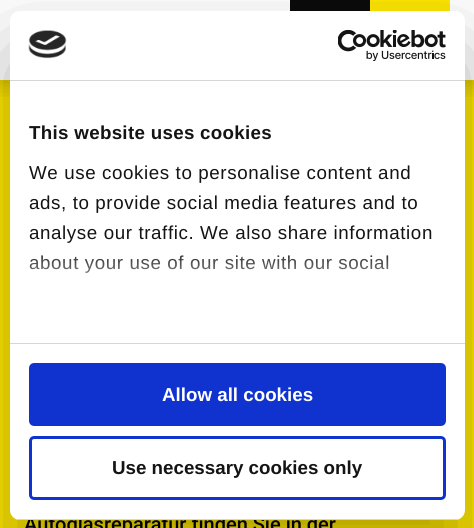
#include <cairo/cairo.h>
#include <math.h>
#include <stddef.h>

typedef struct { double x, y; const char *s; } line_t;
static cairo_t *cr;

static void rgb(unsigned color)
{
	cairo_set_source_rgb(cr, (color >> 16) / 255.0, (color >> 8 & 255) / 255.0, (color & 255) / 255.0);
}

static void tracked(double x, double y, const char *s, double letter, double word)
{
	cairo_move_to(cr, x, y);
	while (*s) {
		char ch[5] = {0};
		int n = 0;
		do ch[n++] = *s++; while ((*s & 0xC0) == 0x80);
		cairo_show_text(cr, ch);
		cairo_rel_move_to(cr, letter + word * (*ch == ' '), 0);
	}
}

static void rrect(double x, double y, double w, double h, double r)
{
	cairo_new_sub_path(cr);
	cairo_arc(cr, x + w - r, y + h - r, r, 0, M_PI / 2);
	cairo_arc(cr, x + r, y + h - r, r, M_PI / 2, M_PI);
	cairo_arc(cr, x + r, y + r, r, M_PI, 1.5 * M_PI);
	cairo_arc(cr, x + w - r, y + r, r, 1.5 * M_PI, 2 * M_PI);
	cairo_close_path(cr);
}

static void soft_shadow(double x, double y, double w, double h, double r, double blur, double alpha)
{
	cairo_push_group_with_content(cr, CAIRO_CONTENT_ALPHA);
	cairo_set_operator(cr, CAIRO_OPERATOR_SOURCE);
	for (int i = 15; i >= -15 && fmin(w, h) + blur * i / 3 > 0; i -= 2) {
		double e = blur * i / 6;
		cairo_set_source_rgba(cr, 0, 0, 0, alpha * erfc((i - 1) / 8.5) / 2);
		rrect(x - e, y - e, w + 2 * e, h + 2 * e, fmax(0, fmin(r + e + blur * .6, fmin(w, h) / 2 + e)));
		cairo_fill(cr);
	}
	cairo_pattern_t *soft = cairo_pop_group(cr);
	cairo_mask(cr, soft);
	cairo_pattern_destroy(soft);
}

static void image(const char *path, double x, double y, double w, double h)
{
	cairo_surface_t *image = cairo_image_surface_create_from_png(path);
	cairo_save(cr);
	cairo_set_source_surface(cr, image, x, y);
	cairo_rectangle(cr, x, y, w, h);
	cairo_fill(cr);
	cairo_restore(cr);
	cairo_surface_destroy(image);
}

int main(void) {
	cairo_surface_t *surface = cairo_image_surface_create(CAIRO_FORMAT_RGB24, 474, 528);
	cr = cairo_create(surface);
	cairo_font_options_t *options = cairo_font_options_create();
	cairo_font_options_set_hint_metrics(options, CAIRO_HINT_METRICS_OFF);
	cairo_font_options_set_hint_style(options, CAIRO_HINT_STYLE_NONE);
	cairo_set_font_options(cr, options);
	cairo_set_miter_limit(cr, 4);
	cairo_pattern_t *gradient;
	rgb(0xffffff);
	cairo_paint(cr);
	rgb(0xfee600);
	cairo_rectangle(cr, 0, 80, 474, 448);
	cairo_fill(cr);
	cairo_save(cr);
	cairo_rectangle(cr, 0, 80, 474, 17);
	cairo_clip(cr);
	rgb(0x0a0a0a);
	soft_shadow(0, 5, 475, 80, 0, 10, 0.2);
	cairo_restore(cr);
	rgb(0x0a0a0a);
	cairo_rectangle(cr, 290, 0, 80, 11);
	cairo_fill(cr);
	rgb(0xfee600);
	cairo_rectangle(cr, 370, 0, 80, 11);
	cairo_fill(cr);
	rgb(0x000000);
	soft_shadow(10, 51, 455, 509, 10, 42.5, 0.3);
	cairo_select_font_face(cr, "Roboto Medium", CAIRO_FONT_SLANT_NORMAL, CAIRO_FONT_WEIGHT_NORMAL);
	cairo_set_font_size(cr, 20);
	rgb(0x000000);
	cairo_move_to(cr, 24, 531);
	cairo_show_text(cr, "Autoglasreparatur finden Sie in der");
	rgb(0xffffff);
	rrect(10, 11, 455, 509, 10);
	cairo_fill(cr);
	cairo_select_font_face(cr, "Liberation Sans", CAIRO_FONT_SLANT_NORMAL, CAIRO_FONT_WEIGHT_NORMAL);
	cairo_set_font_size(cr, 18.75);
	rgb(0x141414);
	tracked(29, 269, "about your use of our site with our social", 0.6, 0);
	gradient = cairo_pattern_create_linear(229, 342, 229, 248);
	cairo_pattern_add_color_stop_rgba(gradient, 0, 1, 1, 1, 1);
	cairo_pattern_add_color_stop_rgba(gradient, 0.5, 1, 1, 1, 0.8);
	cairo_pattern_add_color_stop_rgba(gradient, 1, 1, 1, 1, 0);
	cairo_set_source(cr, gradient);
	cairo_pattern_destroy(gradient);
	cairo_rectangle(cr, 29, 255, 360, 18);
	cairo_fill(cr);
	rrect(30.5, 437.5, 414, 61, 3.5);
	rgb(0x1032cf);
	cairo_set_line_width(cr, 3);
	cairo_stroke(cr);
	cairo_select_font_face(cr, "Liberation Sans", CAIRO_FONT_SLANT_NORMAL, CAIRO_FONT_WEIGHT_BOLD);
	rgb(0x141414);
	cairo_move_to(cr, 112, 474);
	cairo_show_text(cr, "Use necessary cookies only");
	rgb(0x1032cf);
	rrect(30.5, 364.5, 414, 60, 3.5);
	cairo_fill_preserve(cr);
	cairo_stroke(cr);
	rgb(0xffffff);
	cairo_move_to(cr, 162, 401);
	cairo_show_text(cr, "Allow all cookies");
	cairo_save(cr);
	rrect(10, 11, 455, 509, 10);
	cairo_clip(cr);
	rgb(0xd6d6d6);
	cairo_rectangle(cr, 10, 519, 455, 1);
	cairo_fill(cr);
	cairo_restore(cr);
	cairo_select_font_face(cr, "Liberation Sans", CAIRO_FONT_SLANT_NORMAL, CAIRO_FONT_WEIGHT_NORMAL);
	rgb(0x141414);
	{
		static const line_t items[] = {
			{29, 239, "analyse our traffic. We also share information"},
			{29, 209, "ads, to provide social media features and to"},
			{29, 179, "We use cookies to personalise content and"},
		};
		for (size_t i = 0; i < sizeof items / sizeof *items; i++) {
			tracked(items[i].x, items[i].y, items[i].s, 0.6, 0);
		}
	}
	cairo_select_font_face(cr, "Liberation Sans", CAIRO_FONT_SLANT_NORMAL, CAIRO_FONT_WEIGHT_BOLD);
	tracked(29, 139, "This website uses cookies", 0.3, 0);
	rgb(0xd6d6d6);
	cairo_rectangle(cr, 10, 343, 455, 1);
	cairo_fill(cr);
	image("img/2.png", 338, 30, 108, 31);
	image("img/1.png", 28, 30, 39, 29);
	cairo_rectangle(cr, 10, 80, 455, 1);
	cairo_fill(cr);
	cairo_surface_write_to_png(surface, "page.png");
	cairo_font_options_destroy(options);
	cairo_destroy(cr);
	cairo_surface_destroy(surface);
	return 0;
}
